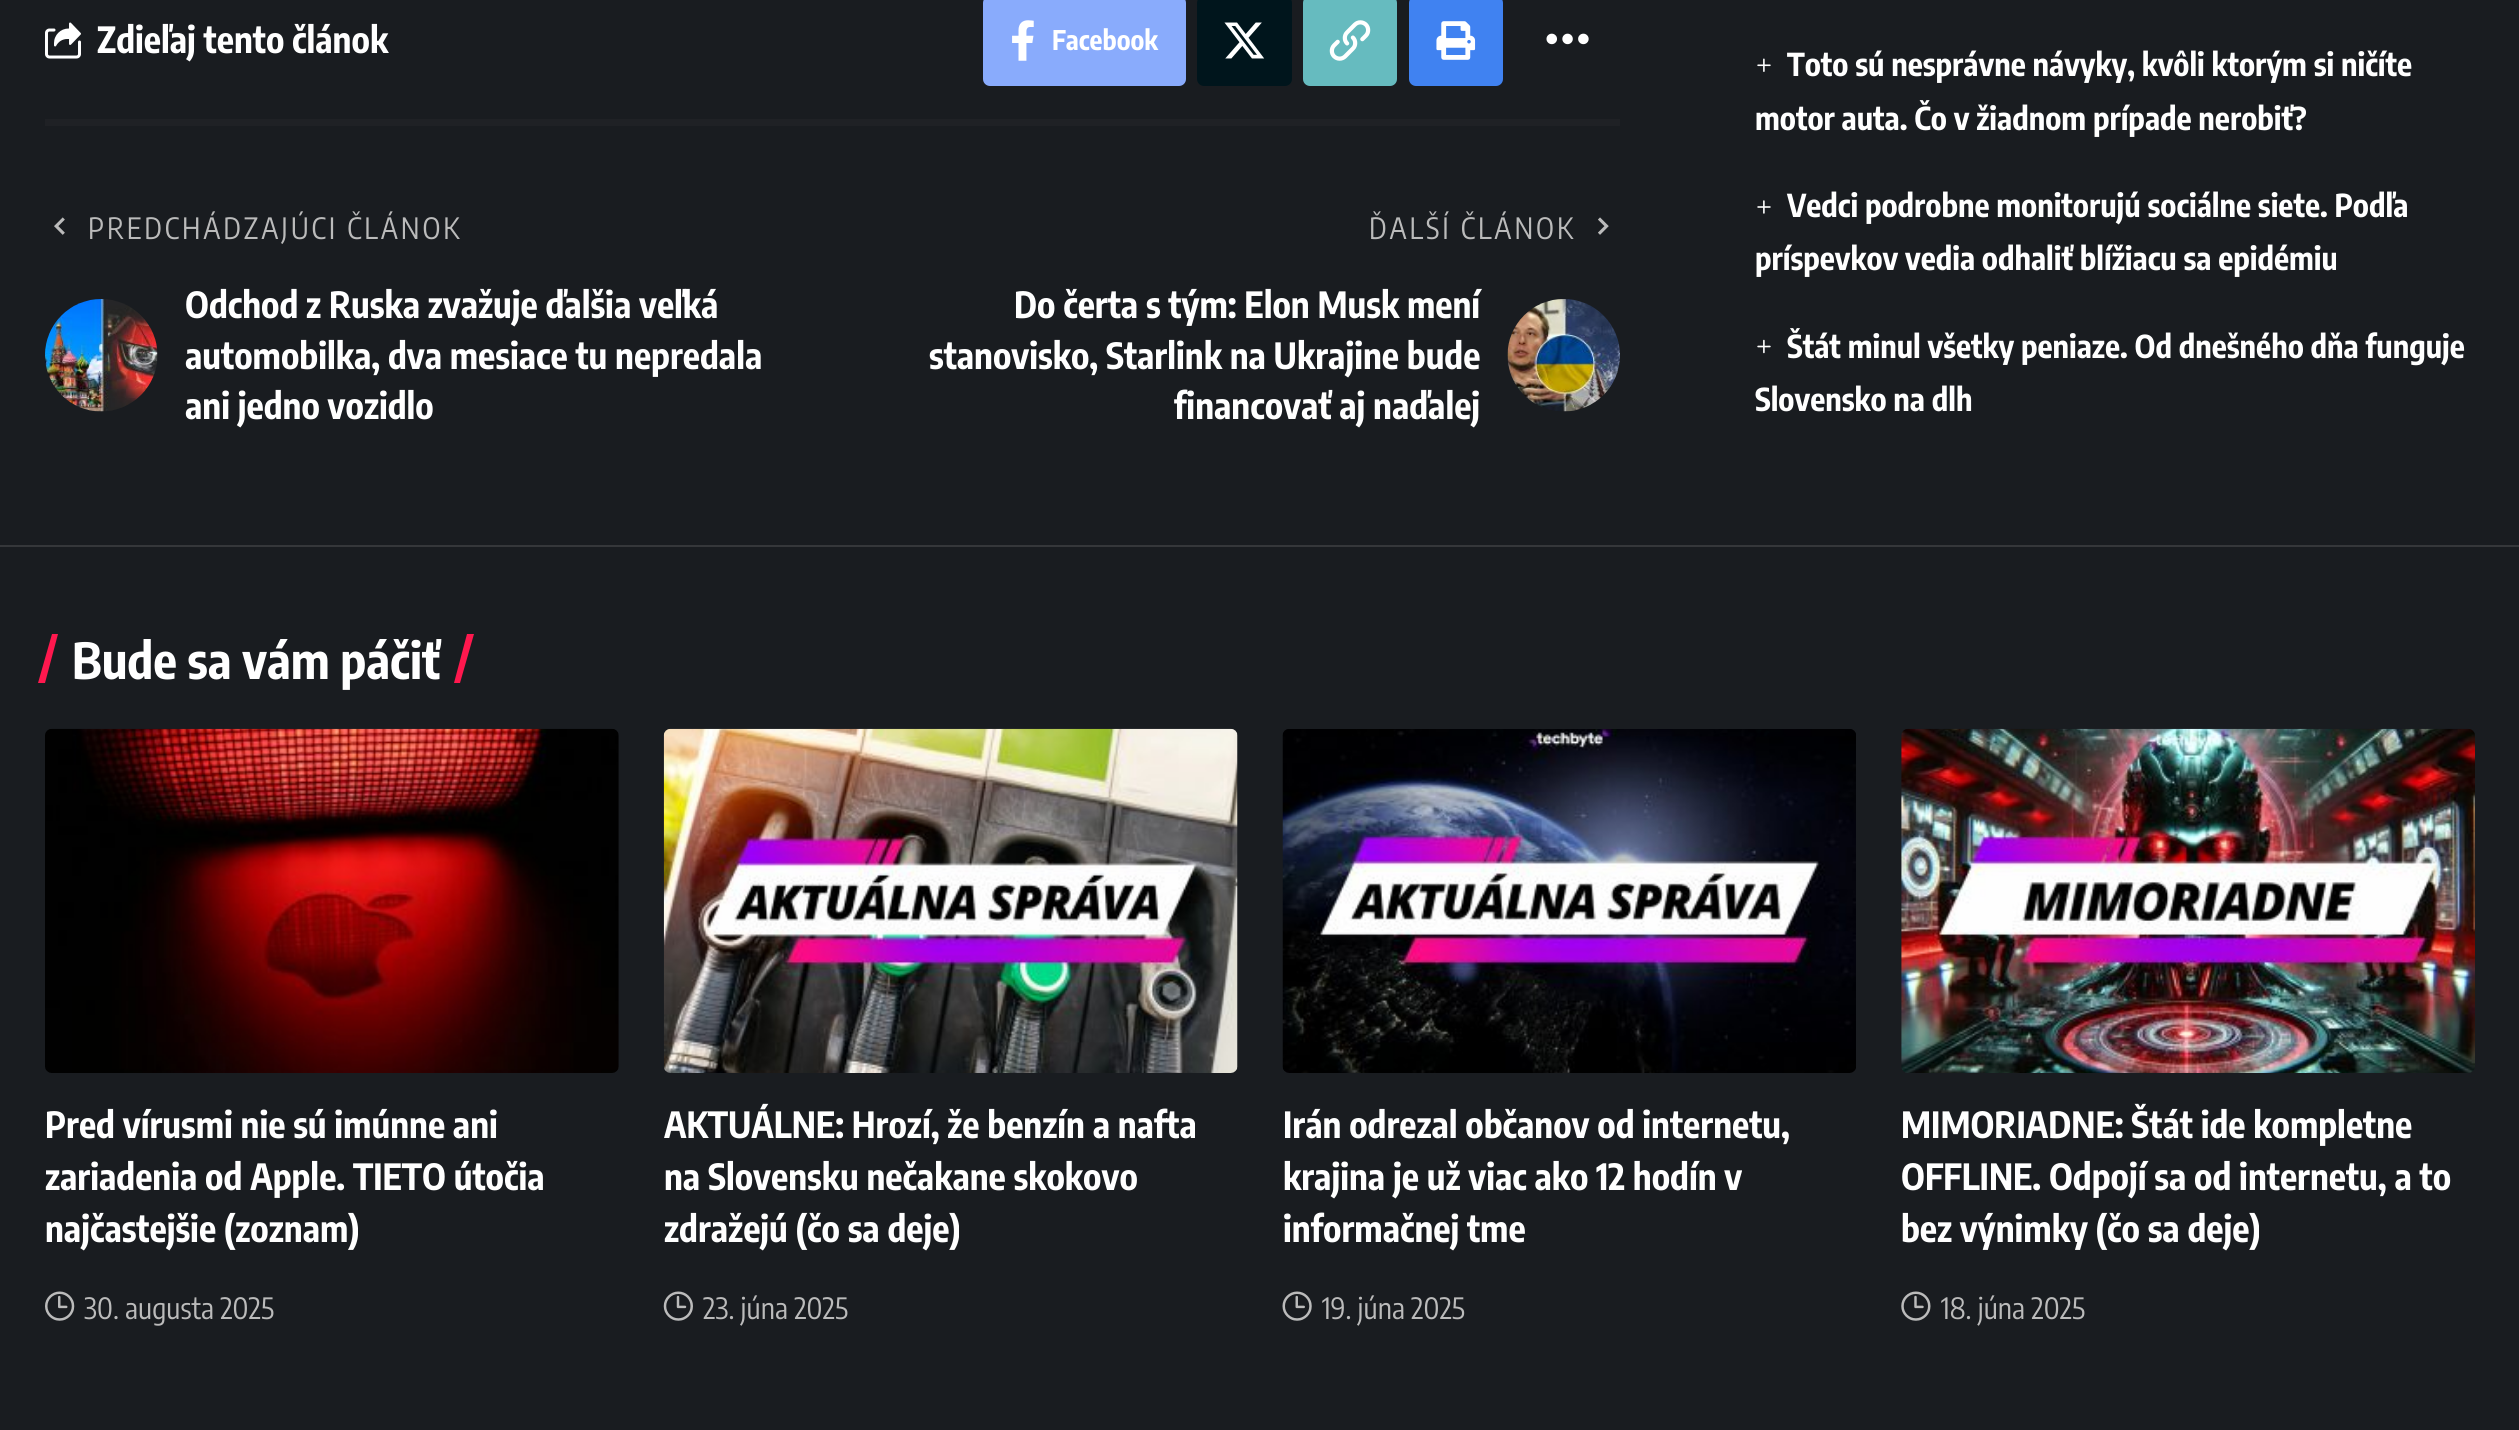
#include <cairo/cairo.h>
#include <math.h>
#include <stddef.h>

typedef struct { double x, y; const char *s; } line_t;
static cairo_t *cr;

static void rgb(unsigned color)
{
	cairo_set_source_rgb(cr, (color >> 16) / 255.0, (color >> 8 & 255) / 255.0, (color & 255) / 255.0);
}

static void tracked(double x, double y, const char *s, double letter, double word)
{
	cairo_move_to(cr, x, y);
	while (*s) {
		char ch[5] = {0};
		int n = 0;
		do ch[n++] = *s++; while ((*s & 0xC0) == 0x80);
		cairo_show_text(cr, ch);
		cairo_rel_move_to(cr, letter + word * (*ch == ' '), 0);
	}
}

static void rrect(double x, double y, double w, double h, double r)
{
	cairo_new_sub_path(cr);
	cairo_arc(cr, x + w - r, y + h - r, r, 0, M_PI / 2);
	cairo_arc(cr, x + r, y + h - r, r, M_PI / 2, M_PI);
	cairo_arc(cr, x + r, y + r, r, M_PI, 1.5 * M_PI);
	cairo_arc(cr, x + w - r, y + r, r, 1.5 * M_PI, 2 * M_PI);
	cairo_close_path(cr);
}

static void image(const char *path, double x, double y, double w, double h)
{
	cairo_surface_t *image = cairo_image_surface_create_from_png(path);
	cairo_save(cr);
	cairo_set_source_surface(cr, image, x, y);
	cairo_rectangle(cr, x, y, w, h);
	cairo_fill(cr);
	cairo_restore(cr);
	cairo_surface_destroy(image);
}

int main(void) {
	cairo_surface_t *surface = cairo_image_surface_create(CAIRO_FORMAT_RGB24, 2519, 1430);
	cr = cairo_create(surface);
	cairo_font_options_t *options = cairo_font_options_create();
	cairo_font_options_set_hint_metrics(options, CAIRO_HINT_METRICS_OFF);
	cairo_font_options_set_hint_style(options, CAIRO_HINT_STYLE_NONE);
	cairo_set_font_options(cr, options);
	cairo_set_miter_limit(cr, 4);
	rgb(0x191c20);
	cairo_paint(cr);
	image("img/1.png", 45, 22, 36, 37);
	rgb(0x89abfc);
	rrect(983, -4, 203, 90, 7);
	cairo_fill(cr);
	image("img/2.png", 1012, 20, 22, 41);
	rgb(0x00151c);
	rrect(1197, -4, 95, 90, 7);
	cairo_fill(cr);
	image("img/3.png", 1224, 22, 41, 37);
	rgb(0x66bbbf);
	rrect(1303, -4, 94, 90, 7);
	cairo_fill(cr);
	image("img/4.png", 1329, 20, 42, 41);
	rgb(0x4082f1);
	rrect(1409, -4, 94, 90, 7);
	cairo_fill(cr);
	image("img/5.png", 1436, 21, 40, 39);
	image("img/6.png", 1546, 33, 43, 12);
	rgb(0x1f2125);
	cairo_rectangle(cr, 45, 119, 1575, 7);
	cairo_fill(cr);
	image("img/7.png", 54, 217, 11, 18);
	image("img/8.png", 45, 299, 113, 113);
	image("img/9.png", 1598, 217, 11, 18);
	image("img/10.png", 1507, 299, 113, 113);
	image("img/11.png", 1757, 58, 14, 14);
	image("img/12.png", 1757, 200, 14, 14);
	image("img/13.png", 1757, 339, 14, 15);
	rgb(0x35373a);
	cairo_rectangle(cr, 0, 545, 2519, 2);
	cairo_fill(cr);
	rgb(0xff184e);
	cairo_new_path(cr);
	cairo_move_to(cr, 467, 634);
	cairo_line_to(cr, 474, 634);
	cairo_line_to(cr, 460, 683);
	cairo_line_to(cr, 454, 683);
	cairo_close_path(cr);
	cairo_fill(cr);
	cairo_new_path(cr);
	cairo_move_to(cr, 52, 634);
	cairo_line_to(cr, 58, 634);
	cairo_line_to(cr, 45, 683);
	cairo_line_to(cr, 38, 683);
	cairo_close_path(cr);
	cairo_fill(cr);
	image("img/14.png", 45, 728, 574, 345);
	image("img/15.png", 45, 1291, 30, 30);
	image("img/16.png", 663, 728, 575, 345);
	image("img/17.png", 663, 1291, 30, 30);
	image("img/18.png", 1282, 729, 574, 344);
	image("img/19.png", 1282, 1291, 30, 30);
	image("img/20.png", 1901, 728, 574, 345);
	image("img/21.png", 1901, 1291, 30, 30);
	cairo_select_font_face(cr, "Encode Sans Condensed", CAIRO_FONT_SLANT_NORMAL, CAIRO_FONT_WEIGHT_BOLD);
	cairo_set_font_size(cr, 36);
	rgb(0xffffff);
	cairo_move_to(cr, 97, 53);
	cairo_show_text(cr, "Zdieľaj tento článok");
	cairo_set_font_size(cr, 27);
	cairo_move_to(cr, 1052, 50);
	cairo_show_text(cr, "Facebook");
	cairo_select_font_face(cr, "Encode Sans Condensed", CAIRO_FONT_SLANT_NORMAL, CAIRO_FONT_WEIGHT_NORMAL);
	cairo_set_font_size(cr, 29.25);
	rgb(0xbbbbbb);
	tracked(88, 239, "PREDCHÁDZAJÚCI ČLÁNOK", 2.9, 0);
	cairo_select_font_face(cr, "Encode Sans Condensed", CAIRO_FONT_SLANT_NORMAL, CAIRO_FONT_WEIGHT_BOLD);
	cairo_set_font_size(cr, 36);
	rgb(0xffffff);
	{
		static const line_t items[] = {
			{185, 318, "Odchod z Ruska zvažuje ďalšia veľká"},
			{185, 369, "automobilka, dva mesiace tu nepredala"},
			{185, 419, "ani jedno vozidlo"},
		};
		for (size_t i = 0; i < sizeof items / sizeof *items; i++) {
			cairo_move_to(cr, items[i].x, items[i].y);
			cairo_show_text(cr, items[i].s);
		}
	}
	cairo_select_font_face(cr, "Encode Sans Condensed", CAIRO_FONT_SLANT_NORMAL, CAIRO_FONT_WEIGHT_NORMAL);
	cairo_set_font_size(cr, 29.25);
	rgb(0xbbbbbb);
	tracked(1369, 239, "ĎALŠÍ ČLÁNOK", 2.9, 0);
	cairo_select_font_face(cr, "Encode Sans Condensed", CAIRO_FONT_SLANT_NORMAL, CAIRO_FONT_WEIGHT_BOLD);
	cairo_set_font_size(cr, 36);
	rgb(0xffffff);
	{
		static const line_t items[] = {
			{1014, 318, "Do čerta s tým: Elon Musk mení"},
			{929, 369, "stanovisko, Starlink na Ukrajine bude"},
			{1174, 419, "financovať aj naďalej"},
		};
		for (size_t i = 0; i < sizeof items / sizeof *items; i++) {
			cairo_move_to(cr, items[i].x, items[i].y);
			cairo_show_text(cr, items[i].s);
		}
	}
	cairo_set_font_size(cr, 31.5);
	{
		static const line_t items[] = {
			{1787, 76, "Toto sú nesprávne návyky, kvôli ktorým si ničíte"},
			{1755, 130, "motor auta. Čo v žiadnom prípade nerobiť?"},
			{1787, 217, "Vedci podrobne monitorujú sociálne siete. Podľa"},
			{1755, 270, "príspevkov vedia odhaliť blížiacu sa epidémiu"},
			{1787, 358, "Štát minul všetky peniaze. Od dnešného dňa funguje"},
			{1755, 411, "Slovensko na dlh"},
		};
		for (size_t i = 0; i < sizeof items / sizeof *items; i++) {
			cairo_move_to(cr, items[i].x, items[i].y);
			cairo_show_text(cr, items[i].s);
		}
	}
	cairo_set_font_size(cr, 49.5);
	cairo_move_to(cr, 72, 679);
	cairo_show_text(cr, "Bude sa vám páčiť");
	cairo_set_font_size(cr, 36);
	{
		static const line_t items[] = {
			{45, 1138, "Pred vírusmi nie sú imúnne ani"},
			{45, 1190, "zariadenia od Apple. TIETO útočia"},
			{45, 1242, "najčastejšie (zoznam)"},
		};
		for (size_t i = 0; i < sizeof items / sizeof *items; i++) {
			cairo_move_to(cr, items[i].x, items[i].y);
			cairo_show_text(cr, items[i].s);
		}
	}
	cairo_select_font_face(cr, "Encode Sans Condensed", CAIRO_FONT_SLANT_NORMAL, CAIRO_FONT_WEIGHT_NORMAL);
	cairo_set_font_size(cr, 29.25);
	rgb(0xbbbbbb);
	cairo_move_to(cr, 84, 1319);
	cairo_show_text(cr, "30. augusta 2025");
	cairo_select_font_face(cr, "Encode Sans Condensed", CAIRO_FONT_SLANT_NORMAL, CAIRO_FONT_WEIGHT_BOLD);
	cairo_set_font_size(cr, 36);
	rgb(0xffffff);
	{
		static const line_t items[] = {
			{664, 1138, "AKTUÁLNE: Hrozí, že benzín a nafta"},
			{664, 1190, "na Slovensku nečakane skokovo"},
			{664, 1242, "zdražejú (čo sa deje)"},
		};
		for (size_t i = 0; i < sizeof items / sizeof *items; i++) {
			cairo_move_to(cr, items[i].x, items[i].y);
			cairo_show_text(cr, items[i].s);
		}
	}
	cairo_select_font_face(cr, "Encode Sans Condensed", CAIRO_FONT_SLANT_NORMAL, CAIRO_FONT_WEIGHT_NORMAL);
	cairo_set_font_size(cr, 29.25);
	rgb(0xbbbbbb);
	cairo_move_to(cr, 703, 1319);
	cairo_show_text(cr, "23. júna 2025");
	cairo_select_font_face(cr, "Encode Sans Condensed", CAIRO_FONT_SLANT_NORMAL, CAIRO_FONT_WEIGHT_BOLD);
	cairo_set_font_size(cr, 36);
	rgb(0xffffff);
	{
		static const line_t items[] = {
			{1283, 1138, "Irán odrezal občanov od internetu,"},
			{1283, 1190, "krajina je už viac ako 12 hodín v"},
			{1283, 1242, "informačnej tme"},
		};
		for (size_t i = 0; i < sizeof items / sizeof *items; i++) {
			cairo_move_to(cr, items[i].x, items[i].y);
			cairo_show_text(cr, items[i].s);
		}
	}
	cairo_select_font_face(cr, "Encode Sans Condensed", CAIRO_FONT_SLANT_NORMAL, CAIRO_FONT_WEIGHT_NORMAL);
	cairo_set_font_size(cr, 29.25);
	rgb(0xbbbbbb);
	cairo_move_to(cr, 1322, 1319);
	cairo_show_text(cr, "19. júna 2025");
	cairo_select_font_face(cr, "Encode Sans Condensed", CAIRO_FONT_SLANT_NORMAL, CAIRO_FONT_WEIGHT_BOLD);
	cairo_set_font_size(cr, 36);
	rgb(0xffffff);
	{
		static const line_t items[] = {
			{1901, 1138, "MIMORIADNE: Štát ide kompletne"},
			{1901, 1190, "OFFLINE. Odpojí sa od internetu, a to"},
			{1901, 1242, "bez výnimky (čo sa deje)"},
		};
		for (size_t i = 0; i < sizeof items / sizeof *items; i++) {
			cairo_move_to(cr, items[i].x, items[i].y);
			cairo_show_text(cr, items[i].s);
		}
	}
	cairo_select_font_face(cr, "Encode Sans Condensed", CAIRO_FONT_SLANT_NORMAL, CAIRO_FONT_WEIGHT_NORMAL);
	cairo_set_font_size(cr, 29.25);
	rgb(0xbbbbbb);
	cairo_move_to(cr, 1941, 1319);
	cairo_show_text(cr, "18. júna 2025");
	cairo_surface_write_to_png(surface, "page.png");
	cairo_font_options_destroy(options);
	cairo_destroy(cr);
	cairo_surface_destroy(surface);
	return 0;
}
